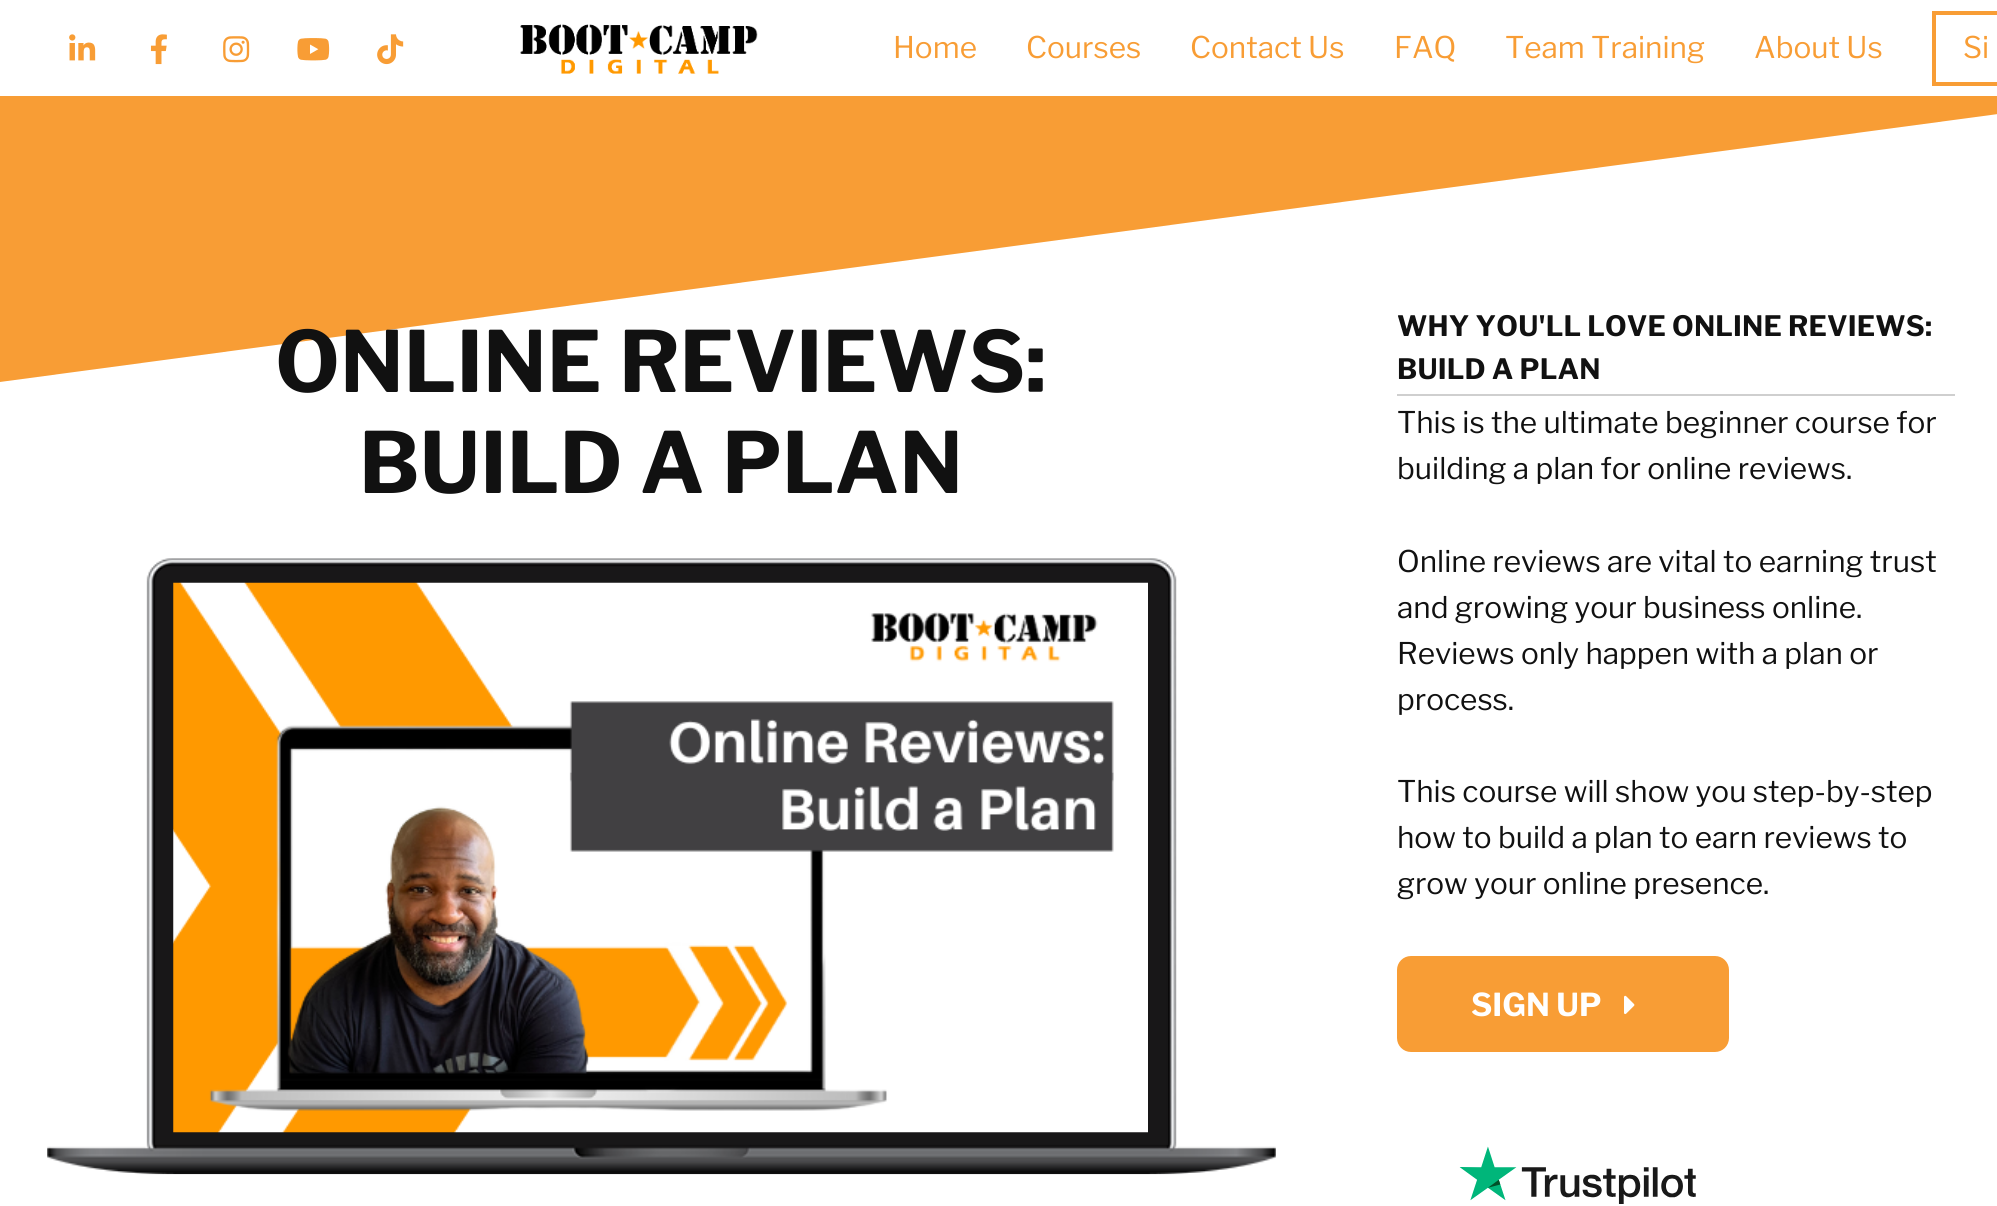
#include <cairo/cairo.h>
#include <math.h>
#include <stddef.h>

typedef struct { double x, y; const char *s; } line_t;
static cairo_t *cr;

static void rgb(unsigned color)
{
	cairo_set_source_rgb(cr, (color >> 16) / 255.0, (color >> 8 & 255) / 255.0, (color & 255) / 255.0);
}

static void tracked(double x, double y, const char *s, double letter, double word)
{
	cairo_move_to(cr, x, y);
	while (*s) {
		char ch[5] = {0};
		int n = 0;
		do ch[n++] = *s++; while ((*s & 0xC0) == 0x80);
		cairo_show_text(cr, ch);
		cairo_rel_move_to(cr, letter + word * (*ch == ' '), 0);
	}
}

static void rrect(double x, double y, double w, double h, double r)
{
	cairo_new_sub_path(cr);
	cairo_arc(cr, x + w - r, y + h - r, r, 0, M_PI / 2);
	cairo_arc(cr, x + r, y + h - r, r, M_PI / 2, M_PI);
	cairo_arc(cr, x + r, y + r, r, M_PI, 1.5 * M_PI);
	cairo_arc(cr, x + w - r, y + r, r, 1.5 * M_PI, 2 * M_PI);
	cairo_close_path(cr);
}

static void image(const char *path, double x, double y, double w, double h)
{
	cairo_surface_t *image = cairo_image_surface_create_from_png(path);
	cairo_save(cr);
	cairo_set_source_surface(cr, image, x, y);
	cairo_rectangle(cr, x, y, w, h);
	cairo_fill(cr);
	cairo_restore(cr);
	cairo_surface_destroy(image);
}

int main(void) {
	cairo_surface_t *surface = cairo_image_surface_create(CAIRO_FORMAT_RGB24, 1997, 1206);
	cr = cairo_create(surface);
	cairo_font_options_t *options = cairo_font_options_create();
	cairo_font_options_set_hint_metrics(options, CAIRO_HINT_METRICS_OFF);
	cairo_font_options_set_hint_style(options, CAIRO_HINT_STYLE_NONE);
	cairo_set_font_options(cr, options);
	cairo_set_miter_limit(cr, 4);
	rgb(0xffffff);
	cairo_paint(cr);
	image("img/1.png", 69, 34, 27, 27);
	image("img/2.png", 150, 34, 17, 31);
	image("img/3.png", 223, 36, 27, 27);
	image("img/4.png", 297, 38, 33, 23);
	image("img/5.png", 377, 34, 27, 31);
	image("img/6.png", 520, 24, 238, 50);
	cairo_rectangle(cr, 1934, 13, 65, 71);
	rgb(0xf89d35);
	cairo_set_line_width(cr, 4);
	cairo_stroke(cr);
	cairo_save(cr);
	cairo_rectangle(cr, 0, 96, 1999, 286);
	cairo_clip(cr);
	cairo_new_path(cr);
	cairo_move_to(cr, 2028, 110);
	cairo_line_to(cr, 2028, 92);
	cairo_line_to(cr, -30, 92);
	cairo_line_to(cr, -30, 386);
	cairo_close_path(cr);
	cairo_fill(cr);
	cairo_restore(cr);
	image("img/7.png", 47, 558, 1229, 617);
	image("img/8.png", 173, 582, 975, 551);
	rgb(0xcfcfcf);
	cairo_rectangle(cr, 1397, 394, 558, 2);
	cairo_fill(cr);
	rgb(0xf89d35);
	rrect(1397, 956, 332, 96, 14);
	cairo_fill(cr);
	image("img/9.png", 1624, 995, 11, 20);
	image("img/10.png", 1459, 1146, 237, 58);
	cairo_select_font_face(cr, "Libre Franklin", CAIRO_FONT_SLANT_NORMAL, CAIRO_FONT_WEIGHT_NORMAL);
	cairo_set_font_size(cr, 29.75);
	{
		static const line_t items[] = {
			{893, 58, "Home"},
			{1026, 58, "Courses"},
			{1190, 58, "Contact Us"},
			{1394, 58, "FAQ"},
			{1505, 58, "Team Training"},
			{1754, 58, "About Us"},
			{1963, 58, "Si"},
		};
		for (size_t i = 0; i < sizeof items / sizeof *items; i++) {
			cairo_move_to(cr, items[i].x, items[i].y);
			cairo_show_text(cr, items[i].s);
		}
	}
	cairo_select_font_face(cr, "Libre Franklin", CAIRO_FONT_SLANT_NORMAL, CAIRO_FONT_WEIGHT_BOLD);
	cairo_set_font_size(cr, 84);
	rgb(0x111111);
	cairo_move_to(cr, 275, 392);
	cairo_show_text(cr, "ONLINE REVIEWS:");
	cairo_move_to(cr, 359, 493);
	cairo_show_text(cr, "BUILD A PLAN");
	cairo_set_font_size(cr, 28);
	tracked(1397, 336, "WHY YOU'LL LOVE ONLINE REVIEWS:", 0.2, 0);
	tracked(1397, 379, "BUILD A PLAN", 0.2, 0);
	cairo_select_font_face(cr, "Libre Franklin", CAIRO_FONT_SLANT_NORMAL, CAIRO_FONT_WEIGHT_NORMAL);
	cairo_set_font_size(cr, 29.75);
	{
		static const line_t items[] = {
			{1397, 433, "This is the ultimate beginner course for"},
			{1397, 479, "building a plan for online reviews."},
			{1397, 572, "Online reviews are vital to earning trust"},
			{1397, 618, "and growing your business online."},
			{1397, 664, "Reviews only happen with a plan or"},
			{1397, 710, "process."},
			{1397, 802, "This course will show you step-by-step"},
			{1397, 848, "how to build a plan to earn reviews to"},
			{1397, 894, "grow your online presence."},
		};
		for (size_t i = 0; i < sizeof items / sizeof *items; i++) {
			cairo_move_to(cr, items[i].x, items[i].y);
			cairo_show_text(cr, items[i].s);
		}
	}
	cairo_select_font_face(cr, "Libre Franklin", CAIRO_FONT_SLANT_NORMAL, CAIRO_FONT_WEIGHT_BOLD);
	cairo_set_font_size(cr, 31.5);
	rgb(0xffffff);
	cairo_move_to(cr, 1471, 1016);
	cairo_show_text(cr, "SIGN UP");
	cairo_surface_write_to_png(surface, "page.png");
	cairo_font_options_destroy(options);
	cairo_destroy(cr);
	cairo_surface_destroy(surface);
	return 0;
}
